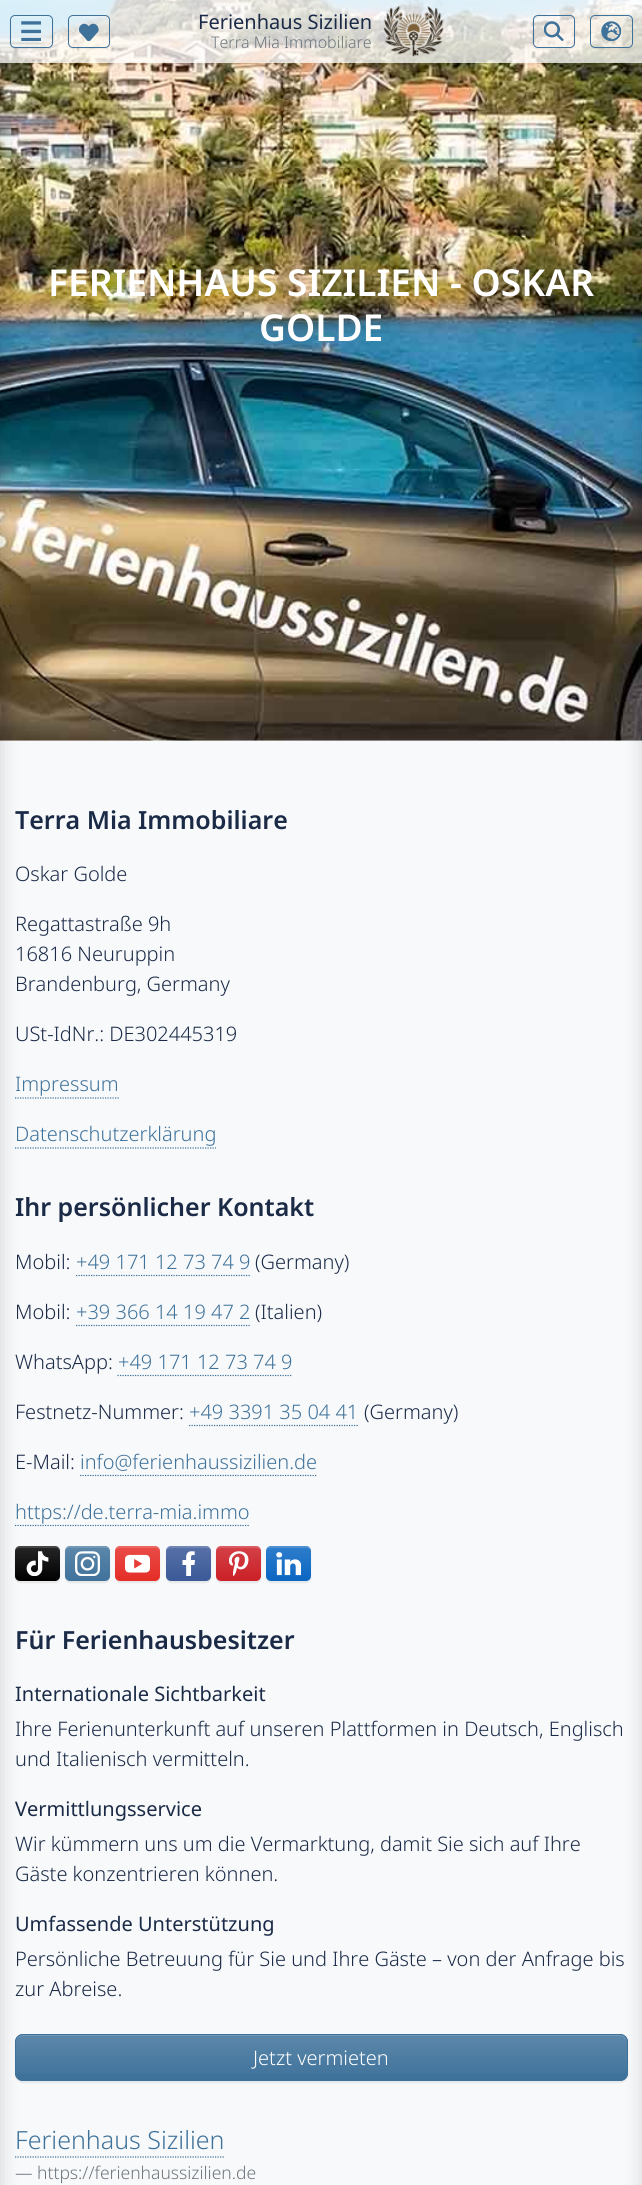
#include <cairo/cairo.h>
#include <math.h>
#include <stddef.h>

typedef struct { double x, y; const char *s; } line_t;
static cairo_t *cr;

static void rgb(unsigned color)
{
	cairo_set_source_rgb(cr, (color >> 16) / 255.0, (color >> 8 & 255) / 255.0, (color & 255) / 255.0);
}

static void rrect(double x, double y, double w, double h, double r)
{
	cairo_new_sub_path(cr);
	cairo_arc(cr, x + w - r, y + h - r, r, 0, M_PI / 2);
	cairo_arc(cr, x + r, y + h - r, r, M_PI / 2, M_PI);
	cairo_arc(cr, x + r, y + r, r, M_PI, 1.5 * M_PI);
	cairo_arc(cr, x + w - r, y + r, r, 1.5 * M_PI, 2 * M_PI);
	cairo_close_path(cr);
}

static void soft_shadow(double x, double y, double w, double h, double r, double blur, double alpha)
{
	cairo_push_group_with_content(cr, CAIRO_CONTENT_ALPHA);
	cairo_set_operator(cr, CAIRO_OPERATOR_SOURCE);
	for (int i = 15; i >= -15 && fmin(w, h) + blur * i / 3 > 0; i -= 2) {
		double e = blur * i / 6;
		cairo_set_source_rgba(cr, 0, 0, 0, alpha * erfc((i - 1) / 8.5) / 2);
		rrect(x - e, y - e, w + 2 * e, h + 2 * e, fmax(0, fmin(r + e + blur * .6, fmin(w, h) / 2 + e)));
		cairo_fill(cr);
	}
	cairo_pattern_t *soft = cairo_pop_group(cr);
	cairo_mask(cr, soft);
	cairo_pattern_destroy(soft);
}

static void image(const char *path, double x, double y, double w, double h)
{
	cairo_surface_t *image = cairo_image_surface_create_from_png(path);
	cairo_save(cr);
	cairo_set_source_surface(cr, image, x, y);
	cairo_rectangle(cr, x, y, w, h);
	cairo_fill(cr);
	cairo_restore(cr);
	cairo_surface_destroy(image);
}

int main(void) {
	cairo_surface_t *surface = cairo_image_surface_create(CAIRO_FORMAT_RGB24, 642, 2185);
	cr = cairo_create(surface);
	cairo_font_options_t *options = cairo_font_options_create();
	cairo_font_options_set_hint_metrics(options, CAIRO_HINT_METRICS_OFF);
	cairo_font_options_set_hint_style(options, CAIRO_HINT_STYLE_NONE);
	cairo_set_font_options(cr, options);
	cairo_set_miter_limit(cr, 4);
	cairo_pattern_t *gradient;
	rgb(0xf8f9fa);
	cairo_paint(cr);
	image("img/6.png", 0, 0, 642, 741);
	cairo_save(cr);
	cairo_set_fill_rule(cr, CAIRO_FILL_RULE_EVEN_ODD);
	cairo_new_path(cr);
	cairo_move_to(cr, 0, 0);
	cairo_line_to(cr, 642, 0);
	cairo_line_to(cr, 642, 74);
	cairo_line_to(cr, 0, 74);
	cairo_close_path(cr);
	cairo_move_to(cr, 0, 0);
	cairo_line_to(cr, 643, 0);
	cairo_line_to(cr, 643, 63);
	cairo_line_to(cr, 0, 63);
	cairo_close_path(cr);
	cairo_clip(cr);
	rgb(0x000000);
	soft_shadow(0, 3, 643, 62, 0, 2.5, 0.07);
	cairo_restore(cr);
	cairo_new_path(cr);
	cairo_move_to(cr, 15, 1098);
	cairo_line_to(cr, 119, 1098);
	rgb(0x3f729b);
	cairo_set_line_width(cr, 1.2);
	cairo_set_dash(cr, (double[]){1.25, 1.25}, 2, 0);
	cairo_stroke(cr);
	cairo_new_path(cr);
	cairo_move_to(cr, 15, 1148);
	cairo_line_to(cr, 216, 1148);
	cairo_stroke(cr);
	cairo_new_path(cr);
	cairo_move_to(cr, 15, 1525.5);
	cairo_line_to(cr, 250, 1525.5);
	cairo_stroke(cr);
	rgb(0x000000);
	soft_shadow(15, 1548, 45, 35, 5, 0.5, 0.07);
	rgb(0x000000);
	rrect(15, 1546, 45, 35, 5);
	cairo_fill(cr);
	gradient = cairo_pattern_create_linear(38, 1546, 38, 1581);
	cairo_pattern_add_color_stop_rgba(gradient, 0, 1, 1, 1, 0.15);
	cairo_pattern_add_color_stop_rgba(gradient, 1, 1, 1, 1, 0);
	cairo_set_source(cr, gradient);
	cairo_pattern_destroy(gradient);
	rrect(15, 1546, 45, 35, 5);
	cairo_fill(cr);
	cairo_set_source_rgba(cr, 1, 1, 1, 0.15);
	cairo_new_path(cr);
	cairo_move_to(cr, 20, 1548);
	cairo_line_to(cr, 55, 1548);
	cairo_curve_to(cr, 58, 1548, 60, 1550, 60, 1552);
	cairo_curve_to(cr, 60, 1545, 55, 1546, 49, 1546);
	cairo_line_to(cr, 26, 1546);
	cairo_curve_to(cr, 20, 1546, 15, 1545, 15, 1552);
	cairo_curve_to(cr, 15, 1550, 17, 1548, 20, 1548);
	cairo_close_path(cr);
	cairo_fill(cr);
	image("img/7.png", 26, 1551, 23, 25);
	rgb(0x000000);
	soft_shadow(15, 2035, 613, 48, 8, 0.5, 0.07);
	rgb(0x3f729b);
	rrect(15, 2034, 613, 47, 8);
	cairo_fill(cr);
	cairo_save(cr);
	rrect(15, 2034, 613, 47, 8);
	cairo_clip(cr);
	gradient = cairo_pattern_create_linear(321, 2035, 321, 2080);
	cairo_pattern_add_color_stop_rgba(gradient, 0, 1, 1, 1, 0.15);
	cairo_pattern_add_color_stop_rgba(gradient, 1, 1, 1, 1, 0);
	cairo_set_source(cr, gradient);
	cairo_pattern_destroy(gradient);
	cairo_rectangle(cr, 15, 2035, 613, 39);
	cairo_fill(cr);
	cairo_restore(cr);
	rgb(0x7499b7);
	cairo_new_path(cr);
	cairo_move_to(cr, 22, 2036);
	cairo_line_to(cr, 620, 2036);
	cairo_curve_to(cr, 623, 2036, 626, 2039, 626, 2042);
	cairo_curve_to(cr, 626, 2038, 624, 2035, 620, 2035);
	cairo_line_to(cr, 22, 2035);
	cairo_curve_to(cr, 18, 2035, 16, 2038, 16, 2042);
	cairo_curve_to(cr, 16, 2039, 19, 2036, 22, 2036);
	cairo_close_path(cr);
	cairo_fill(cr);
	rrect(15.5, 2034.5, 612, 46, 7.5);
	rgb(0x3f729b);
	cairo_set_line_width(cr, 1);
	cairo_set_dash(cr, NULL, 0, 0);
	cairo_stroke(cr);
	cairo_new_path(cr);
	cairo_move_to(cr, 15, 2157);
	cairo_line_to(cr, 225, 2157);
	cairo_set_line_width(cr, 1.2);
	cairo_set_dash(cr, (double[]){1.25, 1.25}, 2, 0);
	cairo_stroke(cr);
	rgb(0x000000);
	soft_shadow(-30, 73, 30, 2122, 0, 10, 0.15);
	soft_shadow(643, 73, 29, 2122, 0, 10, 0.15);
	cairo_set_source_rgba(cr, 1, 1, 1, 0.75);
	cairo_rectangle(cr, 0, 0, 642, 63);
	cairo_fill(cr);
	gradient = cairo_pattern_create_linear(321, 0, 321, 63);
	cairo_pattern_add_color_stop_rgba(gradient, 0, 1, 1, 1, 0.15);
	cairo_pattern_add_color_stop_rgba(gradient, 1, 1, 1, 1, 0);
	cairo_set_source(cr, gradient);
	cairo_pattern_destroy(gradient);
	cairo_rectangle(cr, 0, 0, 642, 46);
	cairo_fill(cr);
	cairo_save(cr);
	cairo_set_fill_rule(cr, CAIRO_FILL_RULE_EVEN_ODD);
	cairo_new_path(cr);
	cairo_move_to(cr, 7, 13);
	cairo_line_to(cr, 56, 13);
	cairo_line_to(cr, 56, 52);
	cairo_line_to(cr, 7, 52);
	cairo_close_path(cr);
	cairo_move_to(cr, 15, 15);
	cairo_line_to(cr, 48, 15);
	cairo_curve_to(cr, 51, 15, 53, 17, 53, 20);
	cairo_line_to(cr, 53, 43);
	cairo_curve_to(cr, 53, 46, 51, 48, 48, 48);
	cairo_line_to(cr, 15, 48);
	cairo_curve_to(cr, 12, 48, 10, 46, 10, 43);
	cairo_line_to(cr, 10, 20);
	cairo_curve_to(cr, 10, 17, 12, 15, 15, 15);
	cairo_close_path(cr);
	cairo_clip(cr);
	rgb(0x000000);
	soft_shadow(10, 16, 43, 33, 5, 0.5, 0.07);
	cairo_restore(cr);
	rgb(0xdef1f9);
	cairo_new_path(cr);
	cairo_move_to(cr, 15, 18);
	cairo_line_to(cr, 48, 18);
	cairo_curve_to(cr, 50, 18, 51, 19, 51, 21);
	cairo_curve_to(cr, 51, 15, 46, 16, 42, 16);
	cairo_line_to(cr, 20, 16);
	cairo_curve_to(cr, 16, 16, 11, 15, 11, 21);
	cairo_curve_to(cr, 11, 19, 13, 18, 15, 18);
	cairo_close_path(cr);
	cairo_fill(cr);
	rrect(10.5, 15.5, 42, 32, 4.5);
	rgb(0x3f729b);
	cairo_set_line_width(cr, 1);
	cairo_set_dash(cr, NULL, 0, 0);
	cairo_stroke(cr);
	image("img/1.png", 21, 21, 20, 20);
	cairo_save(cr);
	cairo_set_fill_rule(cr, CAIRO_FILL_RULE_EVEN_ODD);
	cairo_new_path(cr);
	cairo_move_to(cr, 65, 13);
	cairo_line_to(cr, 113, 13);
	cairo_line_to(cr, 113, 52);
	cairo_line_to(cr, 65, 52);
	cairo_close_path(cr);
	cairo_move_to(cr, 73, 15);
	cairo_line_to(cr, 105, 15);
	cairo_curve_to(cr, 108, 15, 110, 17, 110, 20);
	cairo_line_to(cr, 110, 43);
	cairo_curve_to(cr, 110, 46, 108, 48, 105, 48);
	cairo_line_to(cr, 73, 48);
	cairo_curve_to(cr, 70, 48, 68, 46, 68, 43);
	cairo_line_to(cr, 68, 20);
	cairo_curve_to(cr, 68, 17, 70, 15, 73, 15);
	cairo_close_path(cr);
	cairo_clip(cr);
	rgb(0x000000);
	soft_shadow(68, 16, 42, 33, 5, 0.5, 0.07);
	cairo_restore(cr);
	cairo_set_source_rgba(cr, 1, 1, 1, 0.15);
	cairo_new_path(cr);
	cairo_move_to(cr, 72, 18);
	cairo_line_to(cr, 105, 18);
	cairo_curve_to(cr, 107, 18, 109, 19, 109, 21);
	cairo_curve_to(cr, 109, 15, 104, 16, 100, 16);
	cairo_line_to(cr, 78, 16);
	cairo_curve_to(cr, 74, 16, 69, 15, 69, 21);
	cairo_curve_to(cr, 69, 19, 70, 18, 72, 18);
	cairo_close_path(cr);
	cairo_fill(cr);
	rrect(68.5, 15.5, 41, 32, 4.5);
	rgb(0x3f729b);
	cairo_stroke(cr);
	image("img/2.png", 79, 23, 20, 18);
	image("img/3.png", 384, 6, 60, 51);
	cairo_save(cr);
	cairo_set_fill_rule(cr, CAIRO_FILL_RULE_EVEN_ODD);
	cairo_new_path(cr);
	cairo_move_to(cr, 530, 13);
	cairo_line_to(cr, 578, 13);
	cairo_line_to(cr, 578, 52);
	cairo_line_to(cr, 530, 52);
	cairo_close_path(cr);
	cairo_move_to(cr, 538, 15);
	cairo_line_to(cr, 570, 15);
	cairo_curve_to(cr, 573, 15, 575, 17, 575, 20);
	cairo_line_to(cr, 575, 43);
	cairo_curve_to(cr, 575, 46, 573, 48, 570, 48);
	cairo_line_to(cr, 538, 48);
	cairo_curve_to(cr, 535, 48, 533, 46, 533, 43);
	cairo_line_to(cr, 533, 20);
	cairo_curve_to(cr, 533, 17, 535, 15, 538, 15);
	cairo_close_path(cr);
	cairo_clip(cr);
	rgb(0x000000);
	soft_shadow(533, 16, 42, 33, 5, 0.5, 0.07);
	cairo_restore(cr);
	cairo_set_source_rgba(cr, 1, 1, 1, 0.15);
	cairo_new_path(cr);
	cairo_move_to(cr, 538, 18);
	cairo_line_to(cr, 570, 18);
	cairo_curve_to(cr, 572, 18, 574, 19, 574, 21);
	cairo_curve_to(cr, 574, 15, 569, 16, 565, 16);
	cairo_line_to(cr, 543, 16);
	cairo_curve_to(cr, 539, 16, 534, 15, 534, 21);
	cairo_curve_to(cr, 534, 19, 535, 18, 538, 18);
	cairo_close_path(cr);
	cairo_fill(cr);
	rrect(533.5, 15.5, 41, 32, 4.5);
	rgb(0x3f729b);
	cairo_stroke(cr);
	image("img/4.png", 544, 21, 20, 20);
	cairo_save(cr);
	cairo_set_fill_rule(cr, CAIRO_FILL_RULE_EVEN_ODD);
	cairo_new_path(cr);
	cairo_move_to(cr, 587, 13);
	cairo_line_to(cr, 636, 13);
	cairo_line_to(cr, 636, 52);
	cairo_line_to(cr, 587, 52);
	cairo_close_path(cr);
	cairo_move_to(cr, 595, 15);
	cairo_line_to(cr, 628, 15);
	cairo_curve_to(cr, 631, 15, 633, 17, 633, 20);
	cairo_line_to(cr, 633, 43);
	cairo_curve_to(cr, 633, 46, 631, 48, 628, 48);
	cairo_line_to(cr, 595, 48);
	cairo_curve_to(cr, 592, 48, 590, 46, 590, 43);
	cairo_line_to(cr, 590, 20);
	cairo_curve_to(cr, 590, 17, 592, 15, 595, 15);
	cairo_close_path(cr);
	cairo_clip(cr);
	rgb(0x000000);
	soft_shadow(590, 16, 43, 33, 5, 0.5, 0.07);
	cairo_restore(cr);
	cairo_set_source_rgba(cr, 1, 1, 1, 0.15);
	cairo_new_path(cr);
	cairo_move_to(cr, 595, 18);
	cairo_line_to(cr, 628, 18);
	cairo_curve_to(cr, 630, 18, 631, 19, 631, 21);
	cairo_curve_to(cr, 631, 15, 626, 16, 622, 16);
	cairo_line_to(cr, 600, 16);
	cairo_curve_to(cr, 596, 16, 591, 15, 591, 21);
	cairo_curve_to(cr, 591, 19, 593, 18, 595, 18);
	cairo_close_path(cr);
	cairo_fill(cr);
	rrect(590.5, 15.5, 42, 32, 4.5);
	rgb(0x3f729b);
	cairo_stroke(cr);
	image("img/5.png", 601, 21, 20, 20);
	cairo_new_path(cr);
	cairo_move_to(cr, 76, 1275.5);
	cairo_line_to(cr, 250, 1275.5);
	cairo_set_line_width(cr, 1.2);
	cairo_set_dash(cr, (double[]){1.25, 1.25}, 2, 0);
	cairo_stroke(cr);
	cairo_new_path(cr);
	cairo_move_to(cr, 76, 1325.5);
	cairo_line_to(cr, 250, 1325.5);
	cairo_stroke(cr);
	cairo_new_path(cr);
	cairo_move_to(cr, 117.5, 1375.5);
	cairo_line_to(cr, 292.5, 1375.5);
	cairo_stroke(cr);
	cairo_new_path(cr);
	cairo_move_to(cr, 189, 1425.5);
	cairo_line_to(cr, 359, 1425.5);
	cairo_stroke(cr);
	cairo_new_path(cr);
	cairo_move_to(cr, 80, 1475.5);
	cairo_line_to(cr, 317.5, 1475.5);
	cairo_stroke(cr);
	rgb(0x000000);
	soft_shadow(65, 1548, 45, 35, 5, 0.5, 0.07);
	rgb(0x3f729b);
	rrect(65, 1546, 45, 35, 5);
	cairo_fill(cr);
	gradient = cairo_pattern_create_linear(88, 1546, 88, 1581);
	cairo_pattern_add_color_stop_rgba(gradient, 0, 1, 1, 1, 0.15);
	cairo_pattern_add_color_stop_rgba(gradient, 1, 1, 1, 1, 0);
	cairo_set_source(cr, gradient);
	cairo_pattern_destroy(gradient);
	rrect(65, 1546, 45, 35, 5);
	cairo_fill(cr);
	cairo_set_source_rgba(cr, 1, 1, 1, 0.15);
	cairo_new_path(cr);
	cairo_move_to(cr, 70, 1548);
	cairo_line_to(cr, 105, 1548);
	cairo_curve_to(cr, 108, 1548, 110, 1550, 110, 1552);
	cairo_curve_to(cr, 110, 1545, 105, 1546, 99, 1546);
	cairo_line_to(cr, 76, 1546);
	cairo_curve_to(cr, 70, 1546, 65, 1545, 65, 1552);
	cairo_curve_to(cr, 65, 1550, 67, 1548, 70, 1548);
	cairo_close_path(cr);
	cairo_fill(cr);
	image("img/8.png", 75, 1551, 25, 25);
	rgb(0x000000);
	soft_shadow(115, 1548, 45, 35, 5, 0.5, 0.07);
	rgb(0xe52d27);
	rrect(115, 1546, 45, 35, 5);
	cairo_fill(cr);
	gradient = cairo_pattern_create_linear(138, 1546, 138, 1581);
	cairo_pattern_add_color_stop_rgba(gradient, 0, 1, 1, 1, 0.15);
	cairo_pattern_add_color_stop_rgba(gradient, 1, 1, 1, 1, 0);
	cairo_set_source(cr, gradient);
	cairo_pattern_destroy(gradient);
	rrect(115, 1546, 45, 35, 5);
	cairo_fill(cr);
	cairo_set_source_rgba(cr, 1, 1, 1, 0.15);
	cairo_new_path(cr);
	cairo_move_to(cr, 120, 1548);
	cairo_line_to(cr, 155, 1548);
	cairo_curve_to(cr, 158, 1548, 160, 1550, 160, 1552);
	cairo_curve_to(cr, 160, 1545, 155, 1546, 149, 1546);
	cairo_line_to(cr, 126, 1546);
	cairo_curve_to(cr, 120, 1546, 115, 1545, 115, 1552);
	cairo_curve_to(cr, 115, 1550, 117, 1548, 120, 1548);
	cairo_close_path(cr);
	cairo_fill(cr);
	image("img/9.png", 125, 1554, 25, 19);
	rgb(0x000000);
	soft_shadow(166, 1548, 45, 35, 5, 0.5, 0.07);
	rgb(0x3b5998);
	rrect(166, 1546, 45, 35, 5);
	cairo_fill(cr);
	gradient = cairo_pattern_create_linear(189, 1546, 189, 1581);
	cairo_pattern_add_color_stop_rgba(gradient, 0, 1, 1, 1, 0.15);
	cairo_pattern_add_color_stop_rgba(gradient, 1, 1, 1, 1, 0);
	cairo_set_source(cr, gradient);
	cairo_pattern_destroy(gradient);
	rrect(166, 1546, 45, 35, 5);
	cairo_fill(cr);
	cairo_set_source_rgba(cr, 1, 1, 1, 0.15);
	cairo_new_path(cr);
	cairo_move_to(cr, 171, 1548);
	cairo_line_to(cr, 206, 1548);
	cairo_curve_to(cr, 209, 1548, 211, 1550, 211, 1552);
	cairo_curve_to(cr, 211, 1545, 206, 1546, 200, 1546);
	cairo_line_to(cr, 177, 1546);
	cairo_curve_to(cr, 171, 1546, 166, 1545, 166, 1552);
	cairo_curve_to(cr, 166, 1550, 168, 1548, 171, 1548);
	cairo_close_path(cr);
	cairo_fill(cr);
	image("img/10.png", 182, 1551, 13, 25);
	rgb(0x000000);
	soft_shadow(216, 1548, 45, 35, 5, 0.5, 0.07);
	rgb(0xcb2027);
	rrect(216, 1546, 45, 35, 5);
	cairo_fill(cr);
	gradient = cairo_pattern_create_linear(239, 1546, 239, 1581);
	cairo_pattern_add_color_stop_rgba(gradient, 0, 1, 1, 1, 0.15);
	cairo_pattern_add_color_stop_rgba(gradient, 1, 1, 1, 1, 0);
	cairo_set_source(cr, gradient);
	cairo_pattern_destroy(gradient);
	rrect(216, 1546, 45, 35, 5);
	cairo_fill(cr);
	cairo_set_source_rgba(cr, 1, 1, 1, 0.15);
	cairo_new_path(cr);
	cairo_move_to(cr, 221, 1548);
	cairo_line_to(cr, 256, 1548);
	cairo_curve_to(cr, 259, 1548, 261, 1550, 261, 1552);
	cairo_curve_to(cr, 261, 1545, 256, 1546, 250, 1546);
	cairo_line_to(cr, 227, 1546);
	cairo_curve_to(cr, 221, 1546, 216, 1545, 216, 1552);
	cairo_curve_to(cr, 216, 1550, 218, 1548, 221, 1548);
	cairo_close_path(cr);
	cairo_fill(cr);
	image("img/11.png", 229, 1551, 20, 25);
	rgb(0x000000);
	soft_shadow(266, 1548, 45, 35, 5, 0.5, 0.07);
	rgb(0x0a66c2);
	rrect(266, 1546, 45, 35, 5);
	cairo_fill(cr);
	gradient = cairo_pattern_create_linear(289, 1546, 289, 1581);
	cairo_pattern_add_color_stop_rgba(gradient, 0, 1, 1, 1, 0.15);
	cairo_pattern_add_color_stop_rgba(gradient, 1, 1, 1, 1, 0);
	cairo_set_source(cr, gradient);
	cairo_pattern_destroy(gradient);
	rrect(266, 1546, 45, 35, 5);
	cairo_fill(cr);
	cairo_set_source_rgba(cr, 1, 1, 1, 0.15);
	cairo_new_path(cr);
	cairo_move_to(cr, 271, 1548);
	cairo_line_to(cr, 306, 1548);
	cairo_curve_to(cr, 309, 1548, 311, 1550, 311, 1552);
	cairo_curve_to(cr, 311, 1545, 306, 1546, 300, 1546);
	cairo_line_to(cr, 277, 1546);
	cairo_curve_to(cr, 271, 1546, 266, 1545, 266, 1552);
	cairo_curve_to(cr, 266, 1550, 268, 1548, 271, 1548);
	cairo_close_path(cr);
	cairo_fill(cr);
	image("img/12.png", 276, 1552, 25, 24);
	cairo_select_font_face(cr, "Noto Sans", CAIRO_FONT_SLANT_NORMAL, CAIRO_FONT_WEIGHT_NORMAL);
	cairo_set_font_size(cr, 20);
	rgb(0x1a2a47);
	cairo_move_to(cr, 198, 29);
	cairo_show_text(cr, "Ferienhaus Sizilien");
	cairo_select_font_face(cr, "Noto Sans Light", CAIRO_FONT_SLANT_NORMAL, CAIRO_FONT_WEIGHT_NORMAL);
	cairo_set_font_size(cr, 16);
	rgb(0x6c757d);
	cairo_move_to(cr, 211, 48);
	cairo_show_text(cr, "Terra Mia Immobiliare");
	cairo_select_font_face(cr, "Noto Sans SemiBold", CAIRO_FONT_SLANT_NORMAL, CAIRO_FONT_WEIGHT_NORMAL);
	cairo_set_font_size(cr, 37.1);
	rgb(0xffffff);
	cairo_move_to(cr, 48, 296);
	cairo_show_text(cr, "FERIENHAUS SIZILIEN - OSKAR");
	cairo_move_to(cr, 259, 341);
	cairo_show_text(cr, "GOLDE");
	cairo_set_font_size(cr, 25);
	rgb(0x1a2a47);
	cairo_move_to(cr, 15, 829);
	cairo_show_text(cr, "Terra Mia Immobiliare");
	cairo_select_font_face(cr, "Noto Sans Light", CAIRO_FONT_SLANT_NORMAL, CAIRO_FONT_WEIGHT_NORMAL);
	cairo_set_font_size(cr, 20);
	{
		static const line_t items[] = {
			{15, 881, "Oskar Golde"},
			{15, 931, "Regattastraße 9h"},
			{15, 961, "16816 Neuruppin"},
			{15, 991, "Brandenburg, Germany"},
			{15, 1041, "USt-IdNr.: DE302445319"},
		};
		for (size_t i = 0; i < sizeof items / sizeof *items; i++) {
			cairo_move_to(cr, items[i].x, items[i].y);
			cairo_show_text(cr, items[i].s);
		}
	}
	rgb(0x3f729b);
	cairo_move_to(cr, 15, 1091);
	cairo_show_text(cr, "Impressum");
	cairo_move_to(cr, 15, 1141);
	cairo_show_text(cr, "Datenschutzerklärung");
	cairo_select_font_face(cr, "Noto Sans SemiBold", CAIRO_FONT_SLANT_NORMAL, CAIRO_FONT_WEIGHT_NORMAL);
	cairo_set_font_size(cr, 25);
	rgb(0x1a2a47);
	cairo_move_to(cr, 15, 1216);
	cairo_show_text(cr, "Ihr persönlicher Kontakt");
	cairo_select_font_face(cr, "Noto Sans Light", CAIRO_FONT_SLANT_NORMAL, CAIRO_FONT_WEIGHT_NORMAL);
	cairo_set_font_size(cr, 20);
	cairo_move_to(cr, 15, 1269);
	cairo_show_text(cr, "Mobil:");
	rgb(0x3f729b);
	cairo_move_to(cr, 76, 1269);
	cairo_show_text(cr, "+49 171 12 73 74 9");
	rgb(0x1a2a47);
	cairo_move_to(cr, 255, 1269);
	cairo_show_text(cr, "(Germany)");
	cairo_move_to(cr, 15, 1319);
	cairo_show_text(cr, "Mobil:");
	rgb(0x3f729b);
	cairo_move_to(cr, 76, 1319);
	cairo_show_text(cr, "+39 366 14 19 47 2");
	rgb(0x1a2a47);
	cairo_move_to(cr, 255, 1319);
	cairo_show_text(cr, "(Italien)");
	cairo_move_to(cr, 15, 1369);
	cairo_show_text(cr, "WhatsApp:");
	rgb(0x3f729b);
	cairo_move_to(cr, 118, 1369);
	cairo_show_text(cr, "+49 171 12 73 74 9");
	rgb(0x1a2a47);
	cairo_move_to(cr, 15, 1419);
	cairo_show_text(cr, "Festnetz-Nummer:");
	rgb(0x3f729b);
	cairo_move_to(cr, 189, 1419);
	cairo_show_text(cr, "+49 3391 35 04 41");
	rgb(0x1a2a47);
	cairo_move_to(cr, 364, 1419);
	cairo_show_text(cr, "(Germany)");
	cairo_move_to(cr, 15, 1469);
	cairo_show_text(cr, "E-Mail:");
	rgb(0x3f729b);
	cairo_move_to(cr, 80, 1469);
	cairo_show_text(cr, "info@ferienhaussizilien.de");
	cairo_move_to(cr, 15, 1519);
	cairo_show_text(cr, "https://de.terra-mia.immo");
	cairo_select_font_face(cr, "Noto Sans SemiBold", CAIRO_FONT_SLANT_NORMAL, CAIRO_FONT_WEIGHT_NORMAL);
	cairo_set_font_size(cr, 25);
	rgb(0x1a2a47);
	cairo_move_to(cr, 15, 1649);
	cairo_show_text(cr, "Für Ferienhausbesitzer");
	cairo_select_font_face(cr, "Noto Sans", CAIRO_FONT_SLANT_NORMAL, CAIRO_FONT_WEIGHT_NORMAL);
	cairo_set_font_size(cr, 20);
	cairo_move_to(cr, 15, 1701);
	cairo_show_text(cr, "Internationale Sichtbarkeit");
	cairo_select_font_face(cr, "Noto Sans Light", CAIRO_FONT_SLANT_NORMAL, CAIRO_FONT_WEIGHT_NORMAL);
	cairo_move_to(cr, 15, 1736);
	cairo_show_text(cr, "Ihre Ferienunterkunft auf unseren Plattformen in Deutsch, Englisch");
	cairo_move_to(cr, 15, 1766);
	cairo_show_text(cr, "und Italienisch vermitteln.");
	cairo_select_font_face(cr, "Noto Sans", CAIRO_FONT_SLANT_NORMAL, CAIRO_FONT_WEIGHT_NORMAL);
	cairo_move_to(cr, 15, 1816);
	cairo_show_text(cr, "Vermittlungsservice");
	cairo_select_font_face(cr, "Noto Sans Light", CAIRO_FONT_SLANT_NORMAL, CAIRO_FONT_WEIGHT_NORMAL);
	cairo_move_to(cr, 15, 1851);
	cairo_show_text(cr, "Wir kümmern uns um die Vermarktung, damit Sie sich auf Ihre");
	cairo_move_to(cr, 15, 1881);
	cairo_show_text(cr, "Gäste konzentrieren können.");
	cairo_select_font_face(cr, "Noto Sans", CAIRO_FONT_SLANT_NORMAL, CAIRO_FONT_WEIGHT_NORMAL);
	cairo_move_to(cr, 15, 1931);
	cairo_show_text(cr, "Umfassende Unterstützung");
	cairo_select_font_face(cr, "Noto Sans Light", CAIRO_FONT_SLANT_NORMAL, CAIRO_FONT_WEIGHT_NORMAL);
	cairo_move_to(cr, 15, 1966);
	cairo_show_text(cr, "Persönliche Betreuung für Sie und Ihre Gäste – von der Anfrage bis");
	cairo_move_to(cr, 15, 1996);
	cairo_show_text(cr, "zur Abreise.");
	rgb(0xffffff);
	cairo_move_to(cr, 253, 2065);
	cairo_show_text(cr, "Jetzt vermieten");
	cairo_set_font_size(cr, 25);
	rgb(0x3f729b);
	cairo_move_to(cr, 15, 2149);
	cairo_show_text(cr, "Ferienhaus Sizilien");
	cairo_set_font_size(cr, 17.5);
	rgb(0x6c757d);
	cairo_move_to(cr, 15, 2179);
	cairo_show_text(cr, "— https://ferienhaussizilien.de");
	cairo_surface_write_to_png(surface, "page.png");
	cairo_font_options_destroy(options);
	cairo_destroy(cr);
	cairo_surface_destroy(surface);
	return 0;
}
